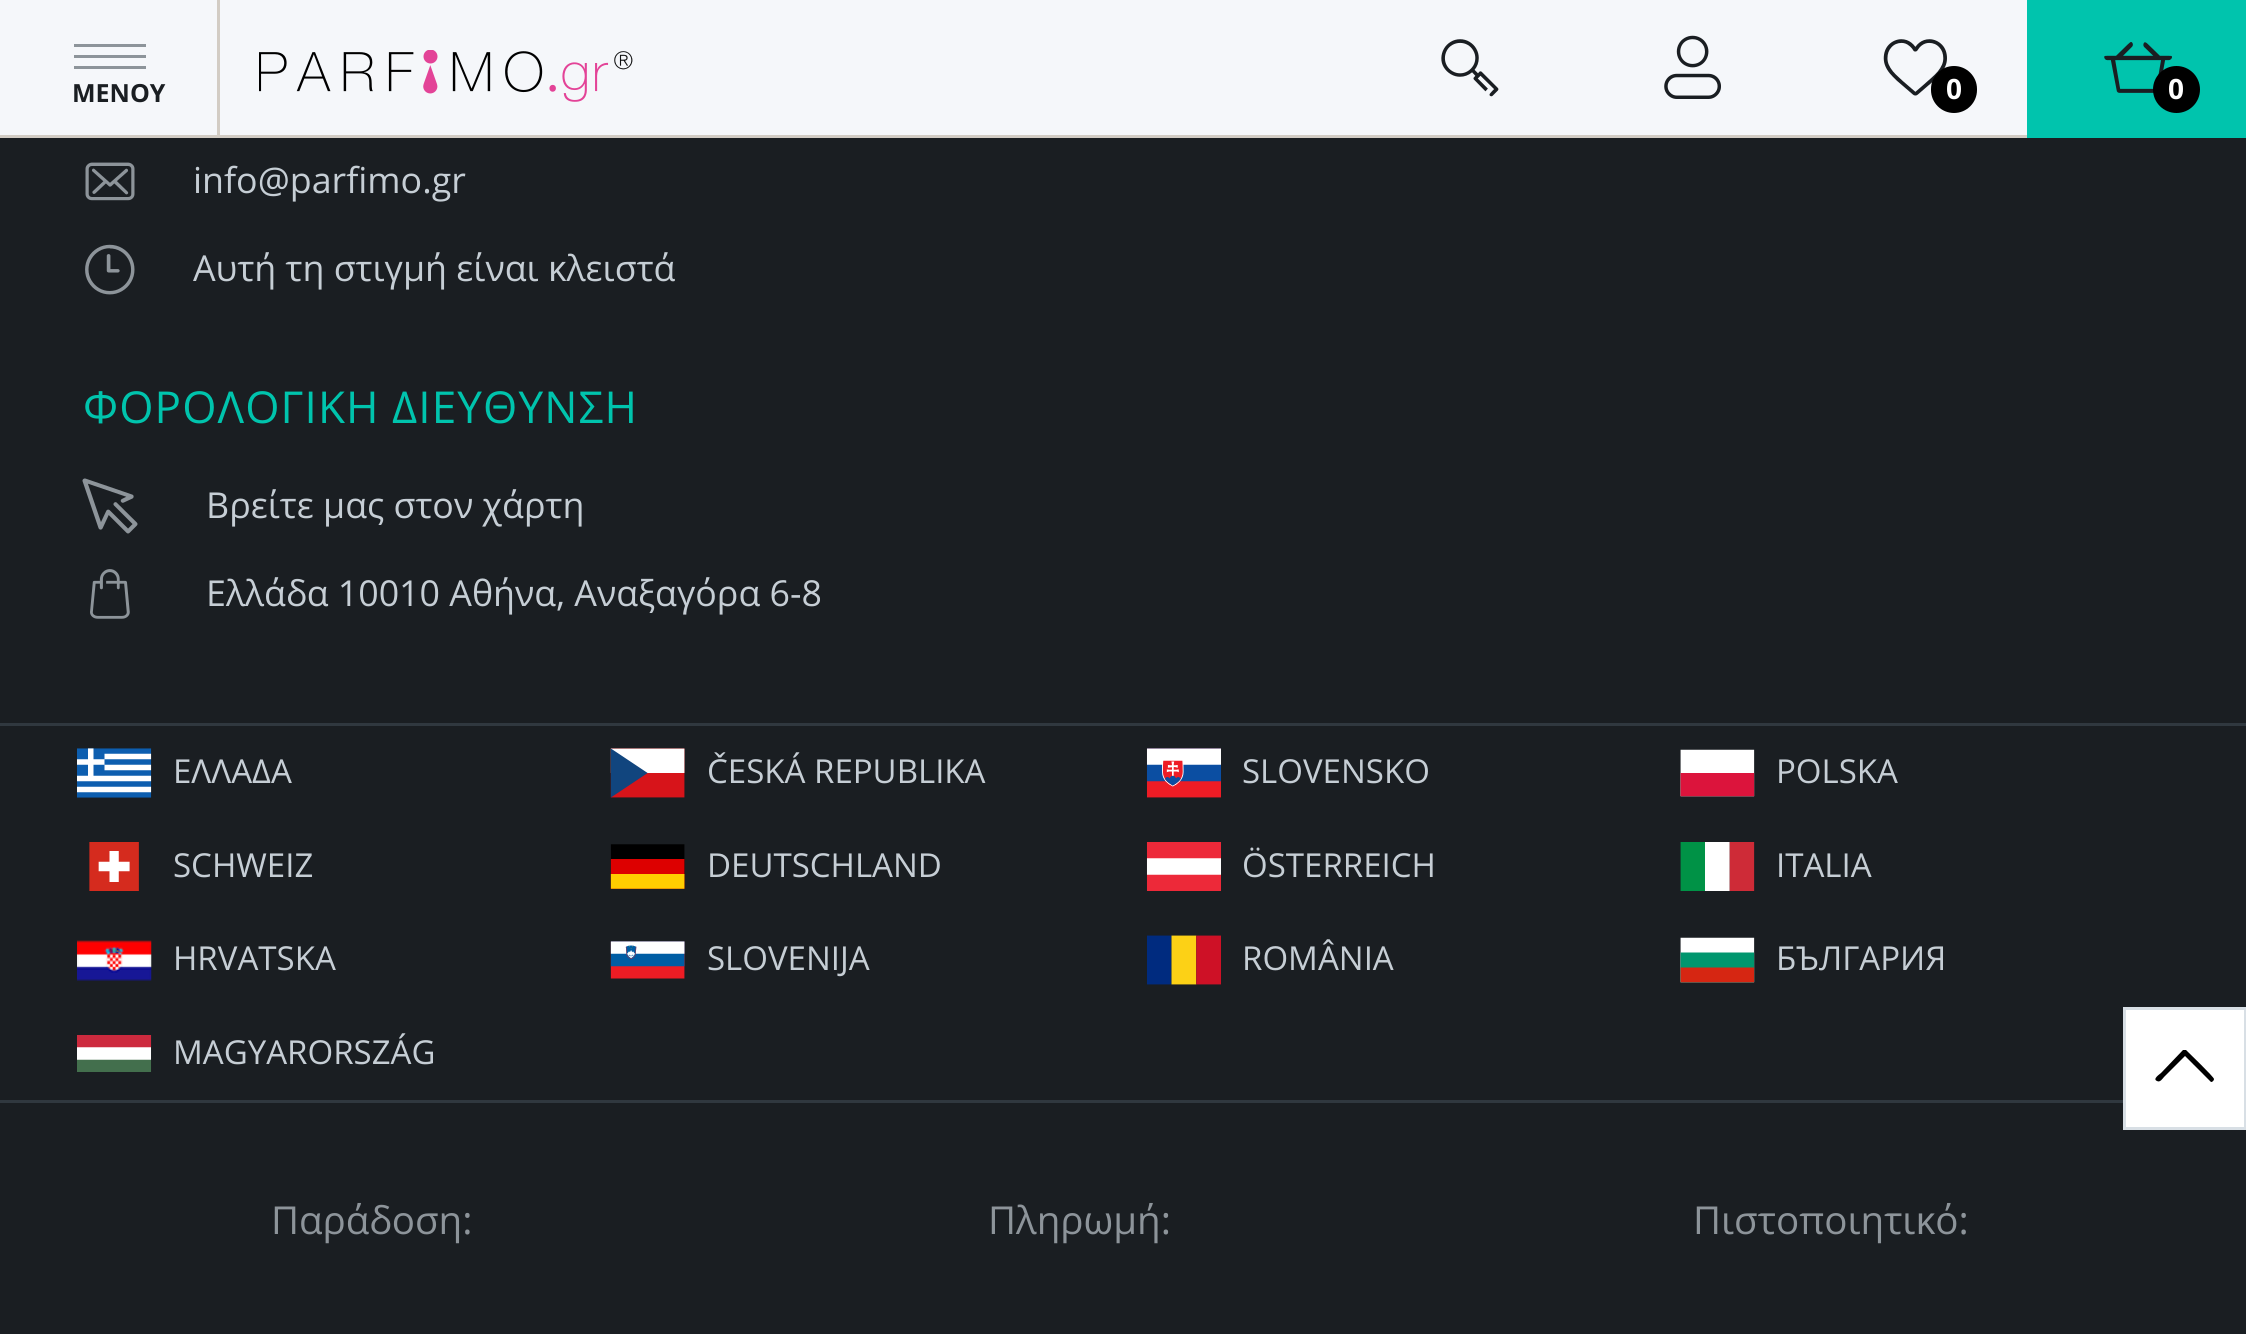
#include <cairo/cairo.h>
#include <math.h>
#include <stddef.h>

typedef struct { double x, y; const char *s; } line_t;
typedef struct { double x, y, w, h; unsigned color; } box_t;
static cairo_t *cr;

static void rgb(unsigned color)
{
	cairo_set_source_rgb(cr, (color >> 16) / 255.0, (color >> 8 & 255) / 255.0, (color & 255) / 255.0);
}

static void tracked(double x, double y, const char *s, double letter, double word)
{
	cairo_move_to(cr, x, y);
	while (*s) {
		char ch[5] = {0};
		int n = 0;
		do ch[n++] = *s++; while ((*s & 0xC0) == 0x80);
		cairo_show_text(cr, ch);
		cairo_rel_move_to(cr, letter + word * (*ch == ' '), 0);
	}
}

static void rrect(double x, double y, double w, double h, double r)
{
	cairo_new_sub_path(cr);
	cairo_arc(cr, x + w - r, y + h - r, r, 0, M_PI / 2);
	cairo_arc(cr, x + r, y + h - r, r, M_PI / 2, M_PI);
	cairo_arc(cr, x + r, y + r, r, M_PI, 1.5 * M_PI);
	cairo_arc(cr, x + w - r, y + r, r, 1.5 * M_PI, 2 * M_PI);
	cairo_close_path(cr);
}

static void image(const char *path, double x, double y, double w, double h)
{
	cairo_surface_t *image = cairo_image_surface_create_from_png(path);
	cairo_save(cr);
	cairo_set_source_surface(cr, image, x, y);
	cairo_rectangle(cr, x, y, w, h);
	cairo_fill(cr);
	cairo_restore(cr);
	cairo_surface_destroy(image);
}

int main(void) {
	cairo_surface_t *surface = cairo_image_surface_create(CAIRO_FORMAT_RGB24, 2246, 1334);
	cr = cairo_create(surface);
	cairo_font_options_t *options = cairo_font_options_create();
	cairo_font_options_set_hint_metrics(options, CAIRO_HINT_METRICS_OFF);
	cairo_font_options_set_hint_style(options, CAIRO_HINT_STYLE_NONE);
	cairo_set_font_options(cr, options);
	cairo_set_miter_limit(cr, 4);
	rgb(0x1a1e22);
	cairo_paint(cr);
	{
		static const box_t items[] = {
			{0, 0, 2027, 135, 0xf5f7fa},
			{0, 135, 2027, 3, 0xd2ccc4},
			{217, 0, 3, 138, 0xd2ccc4},
			{74, 55, 72, 3, 0x8d949a},
			{74, 44, 72, 3, 0x8d949a},
			{74, 66, 72, 3, 0x8d949a},
		};
		for (size_t i = 0; i < sizeof items / sizeof *items; i++) {
			rgb(items[i].color);
			cairo_rectangle(cr, items[i].x, items[i].y, items[i].w, items[i].h);
			cairo_fill(cr);
		}
	}
	image("img/1.png", 259, 50, 374, 52);
	image("img/2.png", 1441, 39, 58, 58);
	image("img/3.png", 1664, 35, 57, 64);
	image("img/4.png", 1883, 39, 64, 57);
	rgb(0x000000);
	rrect(1931, 66, 46, 47, 23);
	cairo_fill(cr);
	rgb(0x00c4ad);
	cairo_rectangle(cr, 2027, 0, 219, 138);
	cairo_fill(cr);
	image("img/5.png", 2104, 42, 68, 51);
	rgb(0x000000);
	cairo_arc(cr, 2176.5, 89.5, 23.5, 0, 2 * M_PI);
	cairo_fill(cr);
	image("img/6.png", 85, 162, 50, 39);
	image("img/7.png", 85, 244, 50, 51);
	image("img/8.png", 82, 478, 56, 56);
	image("img/9.png", 90, 569, 40, 50);
	rgb(0x30383f);
	cairo_rectangle(cr, 0, 723, 2246, 3);
	cairo_fill(cr);
	image("img/10.png", 77, 748, 75, 50);
	image("img/11.png", 610, 748, 75, 50);
	image("img/12.png", 1146, 748, 75, 50);
	image("img/13.png", 1680, 749, 75, 48);
	image("img/14.png", 89, 842, 50, 49);
	image("img/15.png", 610, 844, 75, 45);
	image("img/16.png", 1146, 842, 75, 49);
	image("img/17.png", 1680, 842, 75, 49);
	image("img/18.png", 77, 940, 75, 41);
	image("img/19.png", 610, 941, 75, 38);
	image("img/20.png", 1147, 935, 74, 50);
	image("img/21.png", 1680, 937, 75, 46);
	image("img/22.png", 77, 1035, 75, 37);
	cairo_rectangle(cr, 0, 1100, 2123, 3);
	cairo_fill(cr);
	rgb(0xffffff);
	cairo_rectangle(cr, 2124.5, 1008.5, 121, 120);
	cairo_fill_preserve(cr);
	rgb(0xd8dfe5);
	cairo_set_line_width(cr, 3);
	cairo_stroke(cr);
	rgb(0x000000);
	cairo_new_path(cr);
	cairo_move_to(cr, 2185, 1056);
	cairo_line_to(cr, 2211, 1082);
	cairo_curve_to(cr, 2213, 1082, 2214, 1080, 2214, 1079);
	cairo_curve_to(cr, 2214, 1077, 2189, 1053, 2186, 1050);
	cairo_line_to(cr, 2185, 1050);
	cairo_line_to(cr, 2183, 1050);
	cairo_line_to(cr, 2161, 1073);
	cairo_curve_to(cr, 2160, 1074, 2152, 1079, 2157, 1081);
	cairo_curve_to(cr, 2160, 1083, 2163, 1078, 2164, 1077);
	cairo_close_path(cr);
	cairo_fill(cr);
	cairo_select_font_face(cr, "Open Sans", CAIRO_FONT_SLANT_NORMAL, CAIRO_FONT_WEIGHT_BOLD);
	cairo_set_font_size(cr, 25);
	rgb(0x1a1e22);
	cairo_move_to(cr, 72, 102);
	cairo_show_text(cr, "ΜΕΝΟΥ");
	cairo_set_font_size(cr, 28);
	rgb(0xffffff);
	cairo_move_to(cr, 1946, 99);
	cairo_show_text(cr, "0");
	cairo_move_to(cr, 2168, 99);
	cairo_show_text(cr, "0");
	cairo_select_font_face(cr, "Open Sans", CAIRO_FONT_SLANT_NORMAL, CAIRO_FONT_WEIGHT_NORMAL);
	cairo_set_font_size(cr, 35.75);
	rgb(0xc6ced5);
	cairo_move_to(cr, 193, 193);
	cairo_show_text(cr, "info@parfimo.gr");
	cairo_move_to(cr, 193, 281);
	cairo_show_text(cr, "Αυτή τη στιγμή είναι κλειστά");
	cairo_set_font_size(cr, 44);
	rgb(0x00c4ad);
	tracked(83, 423, "ΦΟΡΟΛΟΓΙΚΗ ΔΙΕΥΘΥΝΣΗ", 1.1, 0);
	cairo_set_font_size(cr, 35.75);
	rgb(0xc6ced5);
	cairo_move_to(cr, 206, 518);
	cairo_show_text(cr, "Βρείτε μας στον χάρτη");
	cairo_move_to(cr, 206, 606);
	cairo_show_text(cr, "Ελλάδα 10010 Αθήνα, Αναξαγόρα 6-8");
	cairo_set_font_size(cr, 33);
	{
		static const line_t items[] = {
			{173, 783, "ΕΛΛΑΔΑ"},
			{707, 783, "ČESKÁ REPUBLIKA"},
			{1242, 783, "SLOVENSKO"},
			{1776, 783, "POLSKA"},
			{173, 877, "SCHWEIZ"},
			{707, 877, "DEUTSCHLAND"},
			{1242, 877, "ÖSTERREICH"},
			{1776, 877, "ITALIA"},
			{173, 970, "HRVATSKA"},
			{707, 970, "SLOVENIJA"},
			{1242, 970, "ROMÂNIA"},
			{1776, 970, "БЪЛГАРИЯ"},
			{173, 1064, "MAGYARORSZÁG"},
		};
		for (size_t i = 0; i < sizeof items / sizeof *items; i++) {
			cairo_move_to(cr, items[i].x, items[i].y);
			cairo_show_text(cr, items[i].s);
		}
	}
	cairo_set_font_size(cr, 38.5);
	rgb(0x8d949a);
	{
		static const line_t items[] = {
			{271, 1234, "Παράδοση:"},
			{988, 1234, "Πληρωμή:"},
			{1693, 1234, "Πιστοποιητικό:"},
		};
		for (size_t i = 0; i < sizeof items / sizeof *items; i++) {
			cairo_move_to(cr, items[i].x, items[i].y);
			cairo_show_text(cr, items[i].s);
		}
	}
	cairo_surface_write_to_png(surface, "page.png");
	cairo_font_options_destroy(options);
	cairo_destroy(cr);
	cairo_surface_destroy(surface);
	return 0;
}
